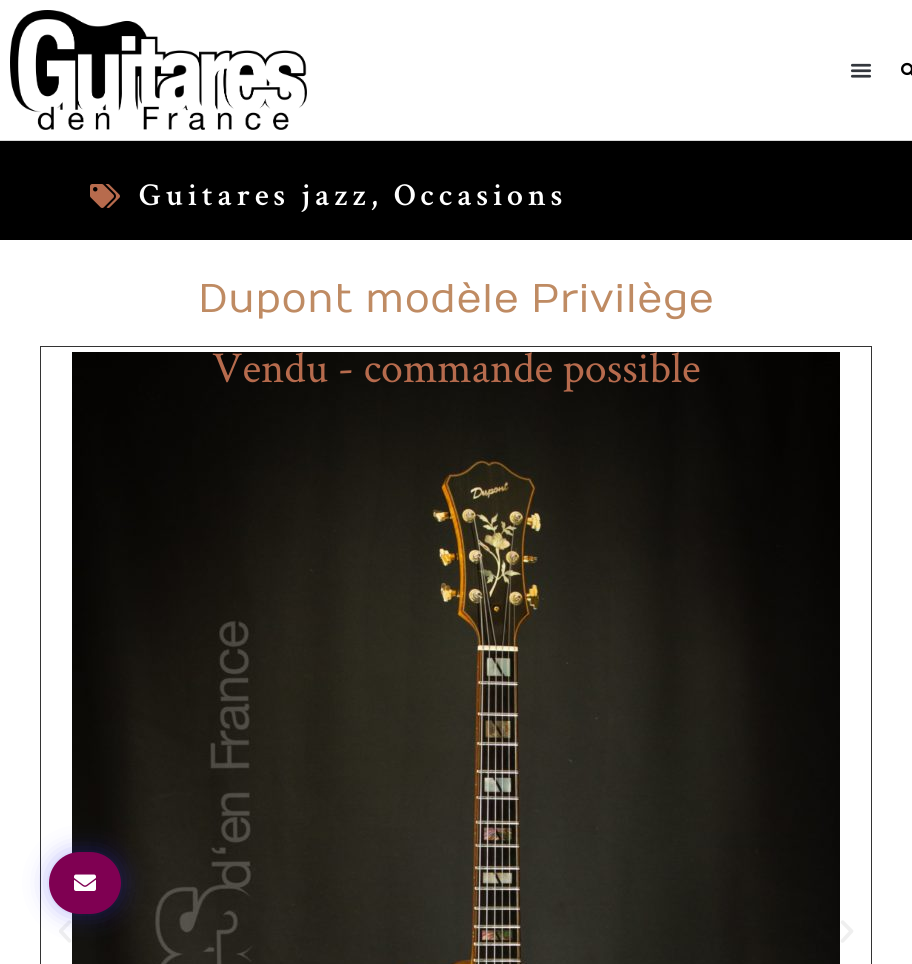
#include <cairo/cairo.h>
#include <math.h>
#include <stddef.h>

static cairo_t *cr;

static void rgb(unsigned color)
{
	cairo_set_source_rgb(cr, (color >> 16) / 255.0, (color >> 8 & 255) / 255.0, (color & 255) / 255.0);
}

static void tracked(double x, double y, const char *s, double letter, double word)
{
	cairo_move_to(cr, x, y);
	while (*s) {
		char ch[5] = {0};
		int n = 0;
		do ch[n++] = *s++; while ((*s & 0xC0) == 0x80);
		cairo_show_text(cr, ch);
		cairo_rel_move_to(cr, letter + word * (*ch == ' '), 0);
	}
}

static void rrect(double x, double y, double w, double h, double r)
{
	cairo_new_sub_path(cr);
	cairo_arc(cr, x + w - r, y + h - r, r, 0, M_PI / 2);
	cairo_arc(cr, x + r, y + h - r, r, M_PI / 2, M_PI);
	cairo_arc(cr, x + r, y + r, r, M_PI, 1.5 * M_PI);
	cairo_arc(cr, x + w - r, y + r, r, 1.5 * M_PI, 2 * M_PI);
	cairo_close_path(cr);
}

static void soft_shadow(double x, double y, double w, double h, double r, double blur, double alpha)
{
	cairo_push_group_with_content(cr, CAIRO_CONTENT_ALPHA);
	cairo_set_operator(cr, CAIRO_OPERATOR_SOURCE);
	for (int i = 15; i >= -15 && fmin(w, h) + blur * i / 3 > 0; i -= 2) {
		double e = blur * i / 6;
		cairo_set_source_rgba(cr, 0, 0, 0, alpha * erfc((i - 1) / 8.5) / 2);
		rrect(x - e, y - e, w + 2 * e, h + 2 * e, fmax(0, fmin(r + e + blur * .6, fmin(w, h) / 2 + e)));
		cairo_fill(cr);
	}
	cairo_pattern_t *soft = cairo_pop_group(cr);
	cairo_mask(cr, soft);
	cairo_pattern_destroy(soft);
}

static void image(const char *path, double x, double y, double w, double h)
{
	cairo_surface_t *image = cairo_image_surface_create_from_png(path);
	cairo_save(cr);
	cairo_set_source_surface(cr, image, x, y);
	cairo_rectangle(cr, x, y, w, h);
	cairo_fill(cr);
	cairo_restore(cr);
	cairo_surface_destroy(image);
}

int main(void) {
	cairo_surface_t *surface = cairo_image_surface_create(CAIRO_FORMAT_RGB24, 912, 964);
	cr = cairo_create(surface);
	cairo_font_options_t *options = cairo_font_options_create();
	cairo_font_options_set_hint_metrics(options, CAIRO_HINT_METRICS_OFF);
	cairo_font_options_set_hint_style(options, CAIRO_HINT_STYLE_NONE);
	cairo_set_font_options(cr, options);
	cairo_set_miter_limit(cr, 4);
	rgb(0x000000);
	cairo_paint(cr);
	rgb(0xffffff);
	cairo_rectangle(cr, 0, 0, 912, 140);
	cairo_fill(cr);
	rgb(0xd8d8d8);
	cairo_rectangle(cr, 0, 140, 912, 1);
	cairo_fill(cr);
	image("img/1.png", 10, 10, 297, 120);
	image("img/2.png", 850, 63, 22, 15);
	image("img/3.png", 901, 62, 11, 14);
	image("img/4.png", 90, 184, 30, 24);
	rgb(0xffffff);
	cairo_rectangle(cr, 0, 240, 912, 724);
	cairo_fill(cr);
	cairo_rectangle(cr, 40.5, 346.5, 831, 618);
	rgb(0x333333);
	cairo_set_line_width(cr, 1);
	cairo_stroke(cr);
	image("img/6.png", 59, 920, 13, 23);
	image("img/7.png", 72, 352, 768, 612);
	rgb(0x3538f0);
	soft_shadow(49, 852, 72, 62, 31, 12.5, 0.35);
	rgb(0x7f0052);
	rrect(49, 852, 72, 62, 31);
	cairo_fill(cr);
	image("img/5.png", 74, 874, 22, 17);
	image("img/8.png", 840, 920, 14, 23);
	cairo_select_font_face(cr, "Crimson Text SemiBold", CAIRO_FONT_SLANT_NORMAL, CAIRO_FONT_WEIGHT_NORMAL);
	cairo_set_font_size(cr, 32);
	rgb(0xffffff);
	tracked(139, 205, "Guitares jazz, Occasions", 4.9, 0);
	cairo_select_font_face(cr, "Numans", CAIRO_FONT_SLANT_NORMAL, CAIRO_FONT_WEIGHT_NORMAL);
	cairo_set_font_size(cr, 40);
	rgb(0xbf8b63);
	cairo_move_to(cr, 198, 312);
	cairo_show_text(cr, "Dupont modèle Privilège");
	cairo_select_font_face(cr, "Crimson Text", CAIRO_FONT_SLANT_NORMAL, CAIRO_FONT_WEIGHT_NORMAL);
	cairo_set_font_size(cr, 44);
	rgb(0xb76b4d);
	cairo_move_to(cr, 212, 382);
	cairo_show_text(cr, "Vendu - commande possible");
	cairo_surface_write_to_png(surface, "page.png");
	cairo_font_options_destroy(options);
	cairo_destroy(cr);
	cairo_surface_destroy(surface);
	return 0;
}
